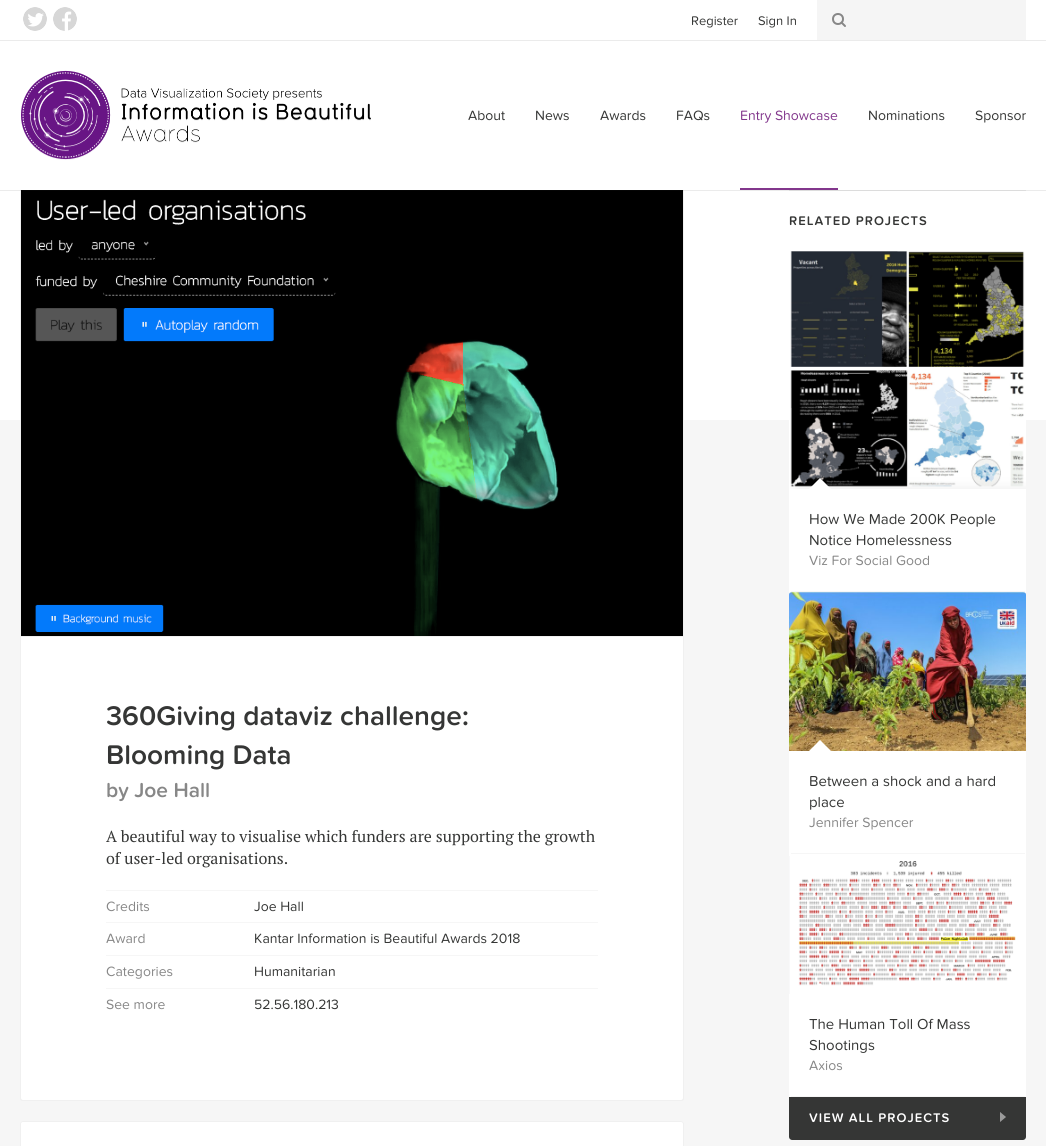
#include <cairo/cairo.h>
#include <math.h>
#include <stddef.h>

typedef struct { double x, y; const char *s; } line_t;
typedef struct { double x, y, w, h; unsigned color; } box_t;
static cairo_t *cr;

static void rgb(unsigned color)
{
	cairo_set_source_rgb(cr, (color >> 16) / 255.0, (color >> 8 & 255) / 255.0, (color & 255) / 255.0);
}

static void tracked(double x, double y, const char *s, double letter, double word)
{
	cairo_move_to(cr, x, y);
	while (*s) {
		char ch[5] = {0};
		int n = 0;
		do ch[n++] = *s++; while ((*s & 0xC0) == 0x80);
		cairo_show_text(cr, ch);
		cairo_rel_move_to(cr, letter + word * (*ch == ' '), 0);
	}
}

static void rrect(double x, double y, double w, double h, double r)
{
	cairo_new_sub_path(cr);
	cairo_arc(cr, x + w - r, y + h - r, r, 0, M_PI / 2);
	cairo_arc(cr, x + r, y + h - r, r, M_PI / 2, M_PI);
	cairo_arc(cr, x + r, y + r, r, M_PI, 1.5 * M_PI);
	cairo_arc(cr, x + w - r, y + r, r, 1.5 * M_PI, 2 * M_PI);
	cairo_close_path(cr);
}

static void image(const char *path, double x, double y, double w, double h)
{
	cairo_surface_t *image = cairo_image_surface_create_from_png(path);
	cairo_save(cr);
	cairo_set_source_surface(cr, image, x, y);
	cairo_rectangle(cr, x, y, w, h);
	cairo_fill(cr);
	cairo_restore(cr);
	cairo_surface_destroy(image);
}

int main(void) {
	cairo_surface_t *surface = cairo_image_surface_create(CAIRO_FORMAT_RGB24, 1046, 1146);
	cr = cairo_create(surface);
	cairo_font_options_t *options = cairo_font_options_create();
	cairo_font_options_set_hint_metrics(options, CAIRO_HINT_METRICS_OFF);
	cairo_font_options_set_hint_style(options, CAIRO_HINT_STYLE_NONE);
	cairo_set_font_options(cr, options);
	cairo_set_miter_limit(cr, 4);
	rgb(0xf6f6f6);
	cairo_paint(cr);
	rgb(0xffffff);
	cairo_rectangle(cr, 0, 0, 1046, 420);
	cairo_fill(cr);
	rgb(0xebebeb);
	cairo_rectangle(cr, 0, 40, 1046, 1);
	cairo_fill(cr);
	image("img/1.png", 23, 7, 24, 24);
	image("img/2.png", 53, 7, 24, 24);
	rgb(0xf5f5f5);
	cairo_rectangle(cr, 817, 0, 209, 40);
	cairo_fill(cr);
	cairo_arc(cr, 838, 19, 5, 0, 2 * M_PI);
	rgb(0x878787);
	cairo_stroke(cr);
	cairo_new_path(cr);
	cairo_move_to(cr, 845, 26);
	cairo_line_to(cr, 841.5, 22.5);
	cairo_set_line_cap(cr, CAIRO_LINE_CAP_ROUND);
	cairo_set_line_join(cr, CAIRO_LINE_JOIN_ROUND);
	cairo_stroke(cr);
	rgb(0xffffff);
	cairo_rectangle(cr, 20, 420, 664, 217);
	cairo_fill(cr);
	rgb(0xf0f0f0);
	cairo_new_path(cr);
	cairo_move_to(cr, 684, 190);
	cairo_line_to(cr, 684, 637);
	cairo_line_to(cr, 683, 636);
	cairo_line_to(cr, 683, 190);
	cairo_close_path(cr);
	cairo_fill(cr);
	cairo_set_source_rgba(cr, 0.831, 0.831, 0.831, 0.35);
	cairo_new_path(cr);
	cairo_move_to(cr, 684, 637);
	cairo_line_to(cr, 20, 637);
	cairo_line_to(cr, 21, 636);
	cairo_line_to(cr, 683, 636);
	cairo_close_path(cr);
	cairo_fill(cr);
	cairo_new_path(cr);
	cairo_move_to(cr, 20, 637);
	cairo_line_to(cr, 20, 190);
	cairo_line_to(cr, 21, 190);
	cairo_line_to(cr, 21, 636);
	cairo_close_path(cr);
	cairo_fill(cr);
	image("img/4.png", 21, 190, 662, 446);
	rgb(0xeeeeee);
	cairo_rectangle(cr, 789, 190, 237, 1);
	cairo_fill(cr);
	cairo_set_source_rgba(cr, 0.208, 0.212, 0.208, 0.1);
	cairo_rectangle(cr, 0, 190, 1046, 1);
	cairo_fill(cr);
	image("img/3.png", 21, 70, 350, 90);
	rgb(0x82368c);
	cairo_rectangle(cr, 740, 188, 98, 2);
	cairo_fill(cr);
	rgb(0xffffff);
	cairo_new_path(cr);
	cairo_move_to(cr, 20, 637);
	cairo_line_to(cr, 684, 637);
	cairo_line_to(cr, 684, 1098);
	cairo_curve_to(cr, 684, 1099.5, 682.5, 1101, 681, 1101);
	cairo_line_to(cr, 23, 1101);
	cairo_curve_to(cr, 21.5, 1101, 20, 1099.5, 20, 1098);
	cairo_close_path(cr);
	cairo_fill(cr);
	cairo_set_source_rgba(cr, 0.831, 0.831, 0.831, 0.35);
	cairo_set_fill_rule(cr, CAIRO_FILL_RULE_EVEN_ODD);
	cairo_new_path(cr);
	cairo_move_to(cr, 20, 637);
	cairo_line_to(cr, 684, 637);
	cairo_line_to(cr, 684, 1098);
	cairo_curve_to(cr, 684, 1100, 683, 1101, 681, 1101);
	cairo_line_to(cr, 23, 1101);
	cairo_curve_to(cr, 21, 1101, 20, 1100, 20, 1098);
	cairo_close_path(cr);
	cairo_move_to(cr, 21, 637);
	cairo_line_to(cr, 683, 637);
	cairo_line_to(cr, 683, 1098);
	cairo_curve_to(cr, 683, 1099, 682, 1100, 681, 1100);
	cairo_line_to(cr, 23, 1100);
	cairo_curve_to(cr, 22, 1100, 21, 1099, 21, 1098);
	cairo_close_path(cr);
	cairo_fill(cr);
	{
		static const box_t items[] = {
			{106, 890, 492, 1, 0xf6f6f6},
			{106, 922, 492, 1, 0xf6f6f6},
			{106, 955, 492, 1, 0xf6f6f6},
			{106, 988, 492, 1, 0xf6f6f6},
		};
		for (size_t i = 0; i < sizeof items / sizeof *items; i++) {
			rgb(items[i].color);
			cairo_rectangle(cr, items[i].x, items[i].y, items[i].w, items[i].h);
			cairo_fill(cr);
		}
	}
	rgb(0xffffff);
	rrect(20, 1121, 664, 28, 3);
	cairo_fill(cr);
	rrect(20.5, 1121.5, 663, 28, 2.5);
	cairo_set_source_rgba(cr, 0.831, 0.831, 0.831, 0.35);
	cairo_set_line_width(cr, 1);
	cairo_set_line_cap(cr, CAIRO_LINE_CAP_BUTT);
	cairo_set_line_join(cr, CAIRO_LINE_JOIN_MITER);
	cairo_stroke(cr);
	rgb(0xffffff);
	rrect(789, 250, 237, 890, 3);
	cairo_fill(cr);
	image("img/5.png", 790, 251, 236, 238);
	rgb(0xf6f6f6);
	cairo_rectangle(cr, 791, 591, 234, 1);
	cairo_fill(cr);
	rgb(0xffffff);
	cairo_set_fill_rule(cr, CAIRO_FILL_RULE_WINDING);
	cairo_new_path(cr);
	cairo_move_to(cr, 831, 489);
	cairo_line_to(cr, 809, 489);
	cairo_line_to(cr, 820, 478);
	cairo_close_path(cr);
	cairo_fill(cr);
	image("img/6.png", 789, 592, 237, 159);
	rgb(0xf6f6f6);
	cairo_rectangle(cr, 791, 853, 234, 1);
	cairo_fill(cr);
	rgb(0xffffff);
	cairo_new_path(cr);
	cairo_move_to(cr, 831, 751);
	cairo_line_to(cr, 809, 751);
	cairo_line_to(cr, 820, 740);
	cairo_close_path(cr);
	cairo_fill(cr);
	image("img/7.png", 789, 856, 227, 138);
	rgb(0xf6f6f6);
	cairo_rectangle(cr, 791, 1096, 234, 1);
	cairo_fill(cr);
	rgb(0xffffff);
	cairo_new_path(cr);
	cairo_move_to(cr, 831, 994);
	cairo_line_to(cr, 809, 994);
	cairo_line_to(cr, 820, 983);
	cairo_close_path(cr);
	cairo_fill(cr);
	rgb(0x353635);
	cairo_new_path(cr);
	cairo_move_to(cr, 789, 1097);
	cairo_line_to(cr, 1026, 1097);
	cairo_line_to(cr, 1026, 1137);
	cairo_curve_to(cr, 1026, 1138.5, 1024.5, 1140, 1023, 1140);
	cairo_line_to(cr, 792, 1140);
	cairo_curve_to(cr, 790.5, 1140, 789, 1138.5, 789, 1137);
	cairo_close_path(cr);
	cairo_fill(cr);
	image("img/8.png", 1000, 1112, 6, 10);
	cairo_select_font_face(cr, "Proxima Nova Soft", CAIRO_FONT_SLANT_NORMAL, CAIRO_FONT_WEIGHT_NORMAL);
	cairo_set_font_size(cr, 13);
	cairo_move_to(cr, 691, 25);
	cairo_show_text(cr, "Register");
	cairo_move_to(cr, 758, 25);
	cairo_show_text(cr, "Sign In");
	cairo_set_font_size(cr, 14);
	{
		static const line_t items[] = {
			{468, 120, "About"},
			{535, 120, "News"},
			{600, 120, "Awards"},
			{676, 120, "FAQs"},
		};
		for (size_t i = 0; i < sizeof items / sizeof *items; i++) {
			cairo_move_to(cr, items[i].x, items[i].y);
			cairo_show_text(cr, items[i].s);
		}
	}
	rgb(0x82368c);
	cairo_move_to(cr, 740, 120);
	cairo_show_text(cr, "Entry Showcase");
	rgb(0x353635);
	cairo_move_to(cr, 868, 120);
	cairo_show_text(cr, "Nominations");
	cairo_move_to(cr, 975, 120);
	cairo_show_text(cr, "Sponsor");
	cairo_select_font_face(cr, "Proxima Nova Soft SemiBold", CAIRO_FONT_SLANT_NORMAL, CAIRO_FONT_WEIGHT_NORMAL);
	cairo_set_font_size(cr, 28);
	cairo_move_to(cr, 106, 725);
	cairo_show_text(cr, "360Giving dataviz challenge:");
	cairo_move_to(cr, 106, 764);
	cairo_show_text(cr, "Blooming Data");
	cairo_set_font_size(cr, 21);
	rgb(0x878787);
	cairo_move_to(cr, 106, 797);
	cairo_show_text(cr, "by Joe Hall");
	cairo_select_font_face(cr, "PT Serif", CAIRO_FONT_SLANT_NORMAL, CAIRO_FONT_WEIGHT_NORMAL);
	cairo_set_font_size(cr, 16);
	rgb(0x353635);
	cairo_move_to(cr, 106, 842);
	cairo_show_text(cr, "A beautiful way to visualise which funders are supporting the growth");
	cairo_move_to(cr, 106, 864);
	cairo_show_text(cr, "of user-led organisations.");
	cairo_select_font_face(cr, "Proxima Nova Soft", CAIRO_FONT_SLANT_NORMAL, CAIRO_FONT_WEIGHT_NORMAL);
	cairo_set_font_size(cr, 14);
	rgb(0x878787);
	cairo_move_to(cr, 106, 911);
	cairo_show_text(cr, "Credits");
	rgb(0x353635);
	cairo_move_to(cr, 254, 911);
	cairo_show_text(cr, "Joe Hall");
	rgb(0x878787);
	cairo_move_to(cr, 106, 943);
	cairo_show_text(cr, "Award");
	rgb(0x353635);
	cairo_move_to(cr, 254, 943);
	cairo_show_text(cr, "Kantar Information is Beautiful Awards 2018");
	rgb(0x878787);
	cairo_move_to(cr, 106, 976);
	cairo_show_text(cr, "Categories");
	rgb(0x353635);
	cairo_move_to(cr, 254, 976);
	cairo_show_text(cr, "Humanitarian");
	rgb(0x878787);
	cairo_move_to(cr, 106, 1009);
	cairo_show_text(cr, "See more");
	rgb(0x353635);
	cairo_move_to(cr, 254, 1009);
	cairo_show_text(cr, "52.56.180.213");
	cairo_select_font_face(cr, "Proxima Nova Soft SemiBold", CAIRO_FONT_SLANT_NORMAL, CAIRO_FONT_WEIGHT_NORMAL);
	cairo_set_font_size(cr, 13);
	tracked(789, 225, "RELATED PROJECTS", 1, 0);
	cairo_select_font_face(cr, "Proxima Nova Soft", CAIRO_FONT_SLANT_NORMAL, CAIRO_FONT_WEIGHT_NORMAL);
	cairo_set_font_size(cr, 15);
	cairo_move_to(cr, 809, 524);
	cairo_show_text(cr, "How We Made 200K People");
	cairo_move_to(cr, 809, 545);
	cairo_show_text(cr, "Notice Homelessness");
	cairo_set_font_size(cr, 14);
	rgb(0x878787);
	cairo_move_to(cr, 809, 565);
	cairo_show_text(cr, "Viz For Social Good");
	cairo_set_font_size(cr, 15);
	rgb(0x353635);
	cairo_move_to(cr, 809, 786);
	cairo_show_text(cr, "Between a shock and a hard");
	cairo_move_to(cr, 809, 807);
	cairo_show_text(cr, "place");
	cairo_set_font_size(cr, 14);
	rgb(0x878787);
	cairo_move_to(cr, 809, 827);
	cairo_show_text(cr, "Jennifer Spencer");
	cairo_set_font_size(cr, 15);
	rgb(0x353635);
	cairo_move_to(cr, 809, 1029);
	cairo_show_text(cr, "The Human Toll Of Mass");
	cairo_move_to(cr, 809, 1050);
	cairo_show_text(cr, "Shootings");
	cairo_set_font_size(cr, 14);
	rgb(0x878787);
	cairo_move_to(cr, 809, 1070);
	cairo_show_text(cr, "Axios");
	cairo_select_font_face(cr, "Proxima Nova Soft SemiBold", CAIRO_FONT_SLANT_NORMAL, CAIRO_FONT_WEIGHT_NORMAL);
	cairo_set_font_size(cr, 13);
	rgb(0xffffff);
	tracked(809, 1122, "VIEW ALL PROJECTS", 1, 0);
	cairo_surface_write_to_png(surface, "page.png");
	cairo_font_options_destroy(options);
	cairo_destroy(cr);
	cairo_surface_destroy(surface);
	return 0;
}
